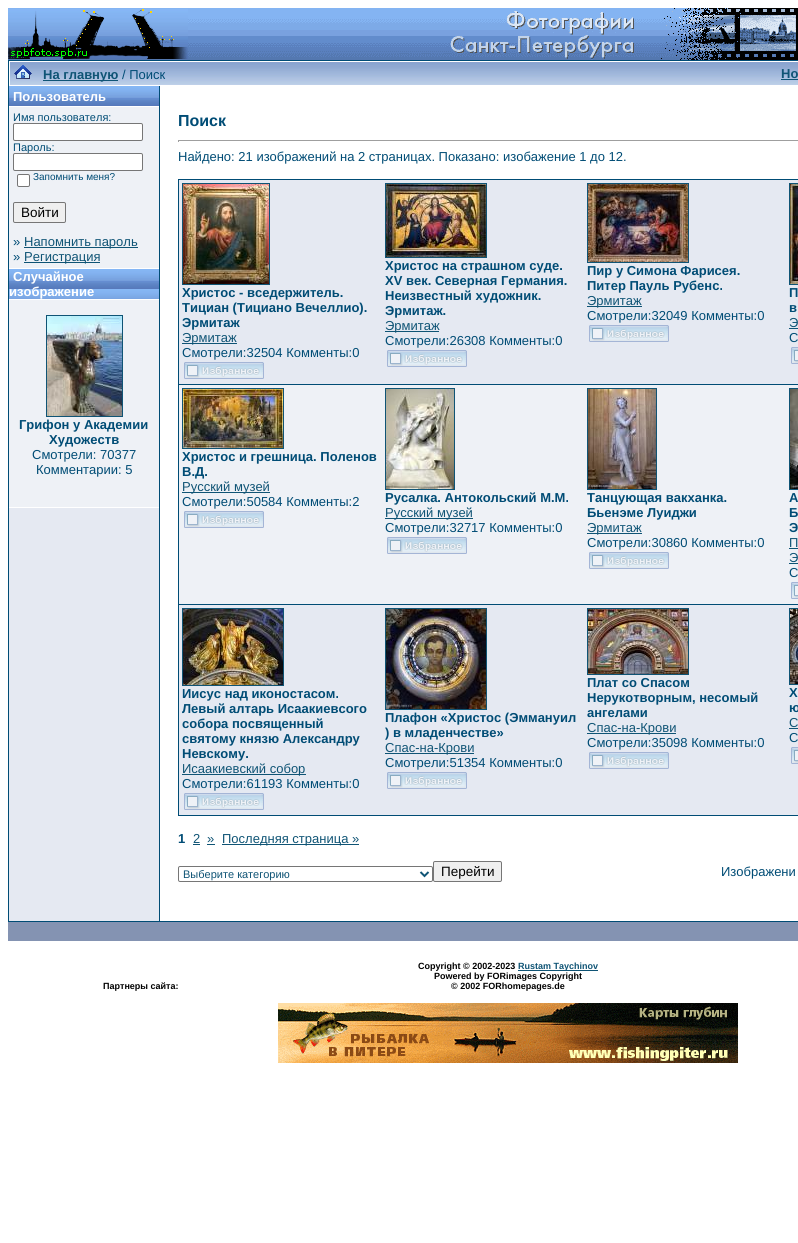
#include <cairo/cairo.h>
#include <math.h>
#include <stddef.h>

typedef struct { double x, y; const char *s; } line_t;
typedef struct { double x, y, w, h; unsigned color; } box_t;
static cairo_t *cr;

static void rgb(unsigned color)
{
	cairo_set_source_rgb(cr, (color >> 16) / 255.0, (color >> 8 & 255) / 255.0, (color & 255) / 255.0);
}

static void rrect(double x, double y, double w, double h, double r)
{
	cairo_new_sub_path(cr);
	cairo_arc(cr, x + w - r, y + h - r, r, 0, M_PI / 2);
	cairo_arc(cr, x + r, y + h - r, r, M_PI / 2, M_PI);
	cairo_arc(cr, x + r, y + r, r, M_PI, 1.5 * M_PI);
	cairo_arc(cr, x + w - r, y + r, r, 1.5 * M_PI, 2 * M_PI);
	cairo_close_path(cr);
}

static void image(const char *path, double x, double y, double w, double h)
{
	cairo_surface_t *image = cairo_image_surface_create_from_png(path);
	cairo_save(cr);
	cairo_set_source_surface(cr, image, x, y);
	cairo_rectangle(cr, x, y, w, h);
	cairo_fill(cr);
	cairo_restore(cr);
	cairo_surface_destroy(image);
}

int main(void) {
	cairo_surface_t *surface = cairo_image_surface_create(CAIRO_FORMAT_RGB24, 798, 1243);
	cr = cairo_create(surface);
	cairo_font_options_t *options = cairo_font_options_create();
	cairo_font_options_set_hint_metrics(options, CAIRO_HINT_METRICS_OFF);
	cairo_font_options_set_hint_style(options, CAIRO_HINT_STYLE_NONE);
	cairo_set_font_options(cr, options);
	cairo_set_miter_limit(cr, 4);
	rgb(0xffffff);
	cairo_paint(cr);
	image("img/1.png", 8, 8, 790, 52);
	image("img/2.png", 8, 9, 180, 50);
	rgb(0x004c75);
	cairo_rectangle(cr, 8, 60, 790, 862);
	cairo_fill(cr);
	rgb(0xffffff);
	cairo_rectangle(cr, 9, 61, 789, 860);
	cairo_fill(cr);
	image("img/3.png", 10, 62, 788, 23);
	image("img/4.png", 14, 65, 18, 14);
	{
		static const box_t items[] = {
			{43, 80, 75, 1, 0x0f5475},
			{781, 79, 17, 1, 0x0f5475},
			{9, 508, 150, 413, 0xe5e9f2},
		};
		for (size_t i = 0; i < sizeof items / sizeof *items; i++) {
			rgb(items[i].color);
			cairo_rectangle(cr, items[i].x, items[i].y, items[i].w, items[i].h);
			cairo_fill(cr);
		}
	}
	image("img/5.png", 9, 86, 150, 20);
	rgb(0xeef1f6);
	cairo_rectangle(cr, 9, 107, 150, 161);
	cairo_fill(cr);
	rgb(0xffffff);
	rrect(13.5, 123.5, 129, 17, 1.5);
	cairo_fill_preserve(cr);
	rgb(0x767676);
	cairo_set_line_width(cr, 1);
	cairo_stroke(cr);
	rgb(0xffffff);
	rrect(17.5, 174.5, 12, 12, 1.5);
	cairo_fill_preserve(cr);
	rgb(0x767676);
	cairo_stroke(cr);
	rgb(0xefefef);
	rrect(13.5, 202.5, 52, 20, 1.5);
	cairo_fill_preserve(cr);
	rgb(0x767676);
	cairo_stroke(cr);
	rgb(0x0f5475);
	cairo_rectangle(cr, 24, 247, 114, 1);
	cairo_fill(cr);
	cairo_rectangle(cr, 24, 262, 76, 1);
	cairo_fill(cr);
	image("img/6.png", 9, 269, 150, 30);
	rgb(0xeef1f6);
	cairo_rectangle(cr, 9, 300, 150, 207);
	cairo_fill(cr);
	cairo_rectangle(cr, 46.5, 315.5, 76, 101);
	rgb(0x0f5475);
	cairo_stroke(cr);
	image("img/7.png", 47, 316, 75, 100);
	{
		static const box_t items[] = {
			{159, 86, 1, 835, 0x004c75},
			{178, 140, 620, 1, 0x9f9f9f},
			{178, 140, 1, 2, 0x9f9f9f},
			{178, 179, 620, 637, 0x004c75},
			{179, 180, 619, 204, 0xe5e9f2},
		};
		for (size_t i = 0; i < sizeof items / sizeof *items; i++) {
			rgb(items[i].color);
			cairo_rectangle(cr, items[i].x, items[i].y, items[i].w, items[i].h);
			cairo_fill(cr);
		}
	}
	cairo_rectangle(cr, 182.5, 183.5, 87, 101);
	rgb(0x0f5475);
	cairo_stroke(cr);
	image("img/8.png", 183, 184, 86, 100);
	cairo_rectangle(cr, 182, 343, 55, 1);
	cairo_fill(cr);
	image("img/9.png", 184, 362, 80, 17);
	cairo_rectangle(cr, 385.5, 183.5, 101, 74);
	cairo_stroke(cr);
	image("img/10.png", 386, 184, 100, 73);
	cairo_rectangle(cr, 385, 331, 54, 1);
	cairo_fill(cr);
	image("img/9.png", 387, 350, 80, 17);
	cairo_rectangle(cr, 587.5, 183.5, 101, 79);
	cairo_stroke(cr);
	image("img/11.png", 588, 184, 100, 78);
	cairo_rectangle(cr, 587, 306, 55, 1);
	cairo_fill(cr);
	image("img/9.png", 589, 325, 80, 17);
	cairo_rectangle(cr, 789.5, 183.5, 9, 101);
	cairo_stroke(cr);
	image("img/12.png", 790, 184, 8, 100);
	cairo_rectangle(cr, 789, 328, 9, 1);
	cairo_fill(cr);
	image("img/13.png", 791, 347, 7, 17);
	rgb(0xeef1f6);
	cairo_rectangle(cr, 179, 385, 619, 219);
	cairo_fill(cr);
	cairo_rectangle(cr, 182.5, 388.5, 101, 60);
	rgb(0x0f5475);
	cairo_stroke(cr);
	image("img/14.png", 183, 389, 100, 59);
	cairo_rectangle(cr, 182, 492, 88, 1);
	cairo_fill(cr);
	image("img/9.png", 184, 511, 80, 17);
	cairo_rectangle(cr, 385.5, 388.5, 69, 101);
	cairo_stroke(cr);
	image("img/15.png", 386, 389, 68, 100);
	cairo_rectangle(cr, 385, 518, 88, 1);
	cairo_fill(cr);
	image("img/9.png", 387, 537, 80, 17);
	cairo_rectangle(cr, 587.5, 388.5, 69, 101);
	cairo_stroke(cr);
	image("img/16.png", 588, 389, 68, 100);
	cairo_rectangle(cr, 587, 533, 55, 1);
	cairo_fill(cr);
	image("img/9.png", 589, 552, 80, 17);
	cairo_rectangle(cr, 789.5, 388.5, 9, 101);
	cairo_stroke(cr);
	image("img/17.png", 790, 389, 8, 100);
	cairo_rectangle(cr, 789, 548, 9, 1);
	cairo_fill(cr);
	cairo_rectangle(cr, 789, 563, 9, 1);
	cairo_fill(cr);
	image("img/13.png", 791, 582, 7, 17);
	rgb(0xe5e9f2);
	cairo_rectangle(cr, 179, 605, 619, 210);
	cairo_fill(cr);
	cairo_rectangle(cr, 182.5, 608.5, 101, 77);
	rgb(0x0f5475);
	cairo_stroke(cr);
	image("img/18.png", 183, 609, 100, 76);
	cairo_rectangle(cr, 182, 774, 124, 1);
	cairo_fill(cr);
	image("img/9.png", 184, 793, 80, 17);
	cairo_rectangle(cr, 385.5, 608.5, 101, 101);
	cairo_stroke(cr);
	image("img/19.png", 386, 609, 100, 100);
	cairo_rectangle(cr, 385, 753, 89, 1);
	cairo_fill(cr);
	image("img/9.png", 387, 772, 80, 17);
	cairo_rectangle(cr, 587.5, 608.5, 101, 66);
	cairo_stroke(cr);
	image("img/20.png", 588, 609, 100, 65);
	cairo_rectangle(cr, 587, 733, 89, 1);
	cairo_fill(cr);
	image("img/9.png", 589, 752, 80, 17);
	cairo_rectangle(cr, 789.5, 608.5, 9, 76);
	cairo_stroke(cr);
	image("img/21.png", 790, 609, 8, 75);
	cairo_rectangle(cr, 789, 728, 9, 1);
	cairo_fill(cr);
	image("img/13.png", 791, 747, 7, 17);
	{
		static const box_t items[] = {
			{193, 844, 7, 1, 0x0f5475},
			{207, 844, 8, 1, 0x0f5475},
			{222, 844, 137, 1, 0x0f5475},
		};
		for (size_t i = 0; i < sizeof items / sizeof *items; i++) {
			rgb(items[i].color);
			cairo_rectangle(cr, items[i].x, items[i].y, items[i].w, items[i].h);
			cairo_fill(cr);
		}
	}
	rrect(178.5, 866.5, 254, 15, 1.5);
	rgb(0x767676);
	cairo_stroke(cr);
	cairo_new_path(cr);
	cairo_move_to(cr, 420.5, 872);
	cairo_line_to(cr, 424.5, 876);
	cairo_line_to(cr, 428.5, 872);
	rgb(0x0f5475);
	cairo_set_line_width(cr, 2);
	cairo_stroke(cr);
	rgb(0xefefef);
	rrect(433.5, 861.5, 68, 20, 1.5);
	cairo_fill_preserve(cr);
	rgb(0x767676);
	cairo_set_line_width(cr, 1);
	cairo_stroke(cr);
	rgb(0x8493b2);
	cairo_rectangle(cr, 8, 922, 790, 19);
	cairo_fill(cr);
	rgb(0x0f5475);
	cairo_rectangle(cr, 518, 970, 80, 1);
	cairo_fill(cr);
	image("img/22.png", 278, 1003, 460, 60);
	cairo_select_font_face(cr, "Liberation Sans", CAIRO_FONT_SLANT_NORMAL, CAIRO_FONT_WEIGHT_BOLD);
	cairo_set_font_size(cr, 13);
	cairo_move_to(cr, 43, 79);
	cairo_show_text(cr, "На главную");
	cairo_select_font_face(cr, "Liberation Sans", CAIRO_FONT_SLANT_NORMAL, CAIRO_FONT_WEIGHT_NORMAL);
	rgb(0x004c75);
	cairo_move_to(cr, 122, 79);
	cairo_show_text(cr, "/ Поиск");
	cairo_select_font_face(cr, "Liberation Sans", CAIRO_FONT_SLANT_NORMAL, CAIRO_FONT_WEIGHT_BOLD);
	rgb(0x0f5475);
	cairo_move_to(cr, 781, 78);
	cairo_show_text(cr, "Но");
	rgb(0xffffff);
	cairo_move_to(cr, 13, 101);
	cairo_show_text(cr, "Пользователь");
	cairo_select_font_face(cr, "Liberation Sans", CAIRO_FONT_SLANT_NORMAL, CAIRO_FONT_WEIGHT_NORMAL);
	cairo_set_font_size(cr, 11);
	rgb(0x004c75);
	cairo_move_to(cr, 13, 121);
	cairo_show_text(cr, "Имя пользователя:");
	cairo_move_to(cr, 13, 151);
	cairo_show_text(cr, "Пароль:");
	rgb(0xffffff);
	rrect(13.5, 153.5, 129, 17, 1.5);
	cairo_fill_preserve(cr);
	rgb(0x767676);
	cairo_stroke(cr);
	cairo_set_font_size(cr, 10);
	rgb(0x004c75);
	cairo_move_to(cr, 33, 180);
	cairo_show_text(cr, "Запомнить меня?");
	cairo_set_font_size(cr, 13.5);
	rgb(0x000000);
	cairo_move_to(cr, 21, 217);
	cairo_show_text(cr, "Войти");
	cairo_set_font_size(cr, 13);
	rgb(0x004c75);
	cairo_move_to(cr, 13, 246);
	cairo_show_text(cr, "»");
	rgb(0x0f5475);
	cairo_move_to(cr, 24, 246);
	cairo_show_text(cr, "Напомнить пароль");
	rgb(0x004c75);
	cairo_move_to(cr, 13, 261);
	cairo_show_text(cr, "»");
	rgb(0x0f5475);
	cairo_move_to(cr, 24, 261);
	cairo_show_text(cr, "Регистрация");
	cairo_select_font_face(cr, "Liberation Sans", CAIRO_FONT_SLANT_NORMAL, CAIRO_FONT_WEIGHT_BOLD);
	rgb(0xffffff);
	cairo_move_to(cr, 13, 281);
	cairo_show_text(cr, "Случайное");
	cairo_move_to(cr, 9, 296);
	cairo_show_text(cr, "изображение");
	rgb(0x004c75);
	cairo_move_to(cr, 19, 429);
	cairo_show_text(cr, "Грифон у Академии");
	cairo_move_to(cr, 49, 444);
	cairo_show_text(cr, "Художеств");
	cairo_select_font_face(cr, "Liberation Sans", CAIRO_FONT_SLANT_NORMAL, CAIRO_FONT_WEIGHT_NORMAL);
	cairo_move_to(cr, 32, 459);
	cairo_show_text(cr, "Смотрели: 70377");
	cairo_move_to(cr, 36, 474);
	cairo_show_text(cr, "Комментарии: 5");
	cairo_select_font_face(cr, "Liberation Sans", CAIRO_FONT_SLANT_NORMAL, CAIRO_FONT_WEIGHT_BOLD);
	cairo_set_font_size(cr, 16);
	cairo_move_to(cr, 178, 126);
	cairo_show_text(cr, "Поиск");
	cairo_select_font_face(cr, "Liberation Sans", CAIRO_FONT_SLANT_NORMAL, CAIRO_FONT_WEIGHT_NORMAL);
	cairo_set_font_size(cr, 13);
	cairo_move_to(cr, 178, 161);
	cairo_show_text(cr, "Найдено: 21 изображений на 2 страницах. Показано: изобажение 1 до 12.");
	cairo_select_font_face(cr, "Liberation Sans", CAIRO_FONT_SLANT_NORMAL, CAIRO_FONT_WEIGHT_BOLD);
	{
		static const line_t items[] = {
			{182, 297, "Христос - вседержитель."},
			{182, 312, "Тициан (Тициано Вечеллио)."},
			{182, 327, "Эрмитаж"},
		};
		for (size_t i = 0; i < sizeof items / sizeof *items; i++) {
			cairo_move_to(cr, items[i].x, items[i].y);
			cairo_show_text(cr, items[i].s);
		}
	}
	cairo_select_font_face(cr, "Liberation Sans", CAIRO_FONT_SLANT_NORMAL, CAIRO_FONT_WEIGHT_NORMAL);
	rgb(0x0f5475);
	cairo_move_to(cr, 182, 342);
	cairo_show_text(cr, "Эрмитаж");
	rgb(0x004c75);
	cairo_move_to(cr, 182, 357);
	cairo_show_text(cr, "Смотрели:32504 Комменты:0");
	cairo_select_font_face(cr, "Liberation Sans", CAIRO_FONT_SLANT_NORMAL, CAIRO_FONT_WEIGHT_BOLD);
	{
		static const line_t items[] = {
			{385, 270, "Христос на страшном суде."},
			{385, 285, "XV век. Северная Германия."},
			{385, 300, "Неизвестный художник."},
			{385, 315, "Эрмитаж."},
		};
		for (size_t i = 0; i < sizeof items / sizeof *items; i++) {
			cairo_move_to(cr, items[i].x, items[i].y);
			cairo_show_text(cr, items[i].s);
		}
	}
	cairo_select_font_face(cr, "Liberation Sans", CAIRO_FONT_SLANT_NORMAL, CAIRO_FONT_WEIGHT_NORMAL);
	rgb(0x0f5475);
	cairo_move_to(cr, 385, 330);
	cairo_show_text(cr, "Эрмитаж");
	rgb(0x004c75);
	cairo_move_to(cr, 385, 345);
	cairo_show_text(cr, "Смотрели:26308 Комменты:0");
	cairo_select_font_face(cr, "Liberation Sans", CAIRO_FONT_SLANT_NORMAL, CAIRO_FONT_WEIGHT_BOLD);
	cairo_move_to(cr, 587, 275);
	cairo_show_text(cr, "Пир у Симона Фарисея.");
	cairo_move_to(cr, 587, 290);
	cairo_show_text(cr, "Питер Пауль Рубенс.");
	cairo_select_font_face(cr, "Liberation Sans", CAIRO_FONT_SLANT_NORMAL, CAIRO_FONT_WEIGHT_NORMAL);
	rgb(0x0f5475);
	cairo_move_to(cr, 587, 305);
	cairo_show_text(cr, "Эрмитаж");
	rgb(0x004c75);
	cairo_move_to(cr, 587, 320);
	cairo_show_text(cr, "Смотрели:32049 Комменты:0");
	cairo_select_font_face(cr, "Liberation Sans", CAIRO_FONT_SLANT_NORMAL, CAIRO_FONT_WEIGHT_BOLD);
	cairo_move_to(cr, 789, 297);
	cairo_show_text(cr, "П");
	cairo_move_to(cr, 789, 312);
	cairo_show_text(cr, "в");
	cairo_select_font_face(cr, "Liberation Sans", CAIRO_FONT_SLANT_NORMAL, CAIRO_FONT_WEIGHT_NORMAL);
	rgb(0x0f5475);
	cairo_move_to(cr, 789, 327);
	cairo_show_text(cr, "Э");
	rgb(0x004c75);
	cairo_move_to(cr, 789, 342);
	cairo_show_text(cr, "С");
	cairo_select_font_face(cr, "Liberation Sans", CAIRO_FONT_SLANT_NORMAL, CAIRO_FONT_WEIGHT_BOLD);
	cairo_move_to(cr, 182, 461);
	cairo_show_text(cr, "Христос и грешница. Поленов");
	cairo_move_to(cr, 182, 476);
	cairo_show_text(cr, "В.Д.");
	cairo_select_font_face(cr, "Liberation Sans", CAIRO_FONT_SLANT_NORMAL, CAIRO_FONT_WEIGHT_NORMAL);
	rgb(0x0f5475);
	cairo_move_to(cr, 182, 491);
	cairo_show_text(cr, "Русский музей");
	rgb(0x004c75);
	cairo_move_to(cr, 182, 506);
	cairo_show_text(cr, "Смотрели:50584 Комменты:2");
	cairo_select_font_face(cr, "Liberation Sans", CAIRO_FONT_SLANT_NORMAL, CAIRO_FONT_WEIGHT_BOLD);
	cairo_move_to(cr, 385, 502);
	cairo_show_text(cr, "Русалка. Антокольский М.М.");
	cairo_select_font_face(cr, "Liberation Sans", CAIRO_FONT_SLANT_NORMAL, CAIRO_FONT_WEIGHT_NORMAL);
	rgb(0x0f5475);
	cairo_move_to(cr, 385, 517);
	cairo_show_text(cr, "Русский музей");
	rgb(0x004c75);
	cairo_move_to(cr, 385, 532);
	cairo_show_text(cr, "Смотрели:32717 Комменты:0");
	cairo_select_font_face(cr, "Liberation Sans", CAIRO_FONT_SLANT_NORMAL, CAIRO_FONT_WEIGHT_BOLD);
	cairo_move_to(cr, 587, 502);
	cairo_show_text(cr, "Танцующая вакханка.");
	cairo_move_to(cr, 587, 517);
	cairo_show_text(cr, "Бьенэме Луиджи");
	cairo_select_font_face(cr, "Liberation Sans", CAIRO_FONT_SLANT_NORMAL, CAIRO_FONT_WEIGHT_NORMAL);
	rgb(0x0f5475);
	cairo_move_to(cr, 587, 532);
	cairo_show_text(cr, "Эрмитаж");
	rgb(0x004c75);
	cairo_move_to(cr, 587, 547);
	cairo_show_text(cr, "Смотрели:30860 Комменты:0");
	cairo_select_font_face(cr, "Liberation Sans", CAIRO_FONT_SLANT_NORMAL, CAIRO_FONT_WEIGHT_BOLD);
	{
		static const line_t items[] = {
			{789, 502, "А"},
			{789, 517, "Б"},
			{789, 532, "Э"},
		};
		for (size_t i = 0; i < sizeof items / sizeof *items; i++) {
			cairo_move_to(cr, items[i].x, items[i].y);
			cairo_show_text(cr, items[i].s);
		}
	}
	cairo_select_font_face(cr, "Liberation Sans", CAIRO_FONT_SLANT_NORMAL, CAIRO_FONT_WEIGHT_NORMAL);
	rgb(0x0f5475);
	cairo_move_to(cr, 789, 547);
	cairo_show_text(cr, "П");
	cairo_move_to(cr, 789, 562);
	cairo_show_text(cr, "Э");
	rgb(0x004c75);
	cairo_move_to(cr, 789, 577);
	cairo_show_text(cr, "С");
	cairo_select_font_face(cr, "Liberation Sans", CAIRO_FONT_SLANT_NORMAL, CAIRO_FONT_WEIGHT_BOLD);
	{
		static const line_t items[] = {
			{182, 698, "Иисус над иконостасом."},
			{182, 713, "Левый алтарь Исаакиевсого"},
			{182, 728, "собора посвященный"},
			{182, 743, "святому князю Александру"},
			{182, 758, "Невскому."},
		};
		for (size_t i = 0; i < sizeof items / sizeof *items; i++) {
			cairo_move_to(cr, items[i].x, items[i].y);
			cairo_show_text(cr, items[i].s);
		}
	}
	cairo_select_font_face(cr, "Liberation Sans", CAIRO_FONT_SLANT_NORMAL, CAIRO_FONT_WEIGHT_NORMAL);
	rgb(0x0f5475);
	cairo_move_to(cr, 182, 773);
	cairo_show_text(cr, "Исаакиевский собор");
	rgb(0x004c75);
	cairo_move_to(cr, 182, 788);
	cairo_show_text(cr, "Смотрели:61193 Комменты:0");
	cairo_select_font_face(cr, "Liberation Sans", CAIRO_FONT_SLANT_NORMAL, CAIRO_FONT_WEIGHT_BOLD);
	cairo_move_to(cr, 385, 722);
	cairo_show_text(cr, "Плафон «Христос (Эммануил");
	cairo_move_to(cr, 385, 737);
	cairo_show_text(cr, ") в младенчестве»");
	cairo_select_font_face(cr, "Liberation Sans", CAIRO_FONT_SLANT_NORMAL, CAIRO_FONT_WEIGHT_NORMAL);
	rgb(0x0f5475);
	cairo_move_to(cr, 385, 752);
	cairo_show_text(cr, "Спас-на-Крови");
	rgb(0x004c75);
	cairo_move_to(cr, 385, 767);
	cairo_show_text(cr, "Смотрели:51354 Комменты:0");
	cairo_select_font_face(cr, "Liberation Sans", CAIRO_FONT_SLANT_NORMAL, CAIRO_FONT_WEIGHT_BOLD);
	{
		static const line_t items[] = {
			{587, 687, "Плат со Спасом"},
			{587, 702, "Нерукотворным, несомый"},
			{587, 717, "ангелами"},
		};
		for (size_t i = 0; i < sizeof items / sizeof *items; i++) {
			cairo_move_to(cr, items[i].x, items[i].y);
			cairo_show_text(cr, items[i].s);
		}
	}
	cairo_select_font_face(cr, "Liberation Sans", CAIRO_FONT_SLANT_NORMAL, CAIRO_FONT_WEIGHT_NORMAL);
	rgb(0x0f5475);
	cairo_move_to(cr, 587, 732);
	cairo_show_text(cr, "Спас-на-Крови");
	rgb(0x004c75);
	cairo_move_to(cr, 587, 747);
	cairo_show_text(cr, "Смотрели:35098 Комменты:0");
	cairo_select_font_face(cr, "Liberation Sans", CAIRO_FONT_SLANT_NORMAL, CAIRO_FONT_WEIGHT_BOLD);
	cairo_move_to(cr, 789, 697);
	cairo_show_text(cr, "Х");
	cairo_move_to(cr, 789, 712);
	cairo_show_text(cr, "ю");
	cairo_select_font_face(cr, "Liberation Sans", CAIRO_FONT_SLANT_NORMAL, CAIRO_FONT_WEIGHT_NORMAL);
	rgb(0x0f5475);
	cairo_move_to(cr, 789, 727);
	cairo_show_text(cr, "С");
	rgb(0x004c75);
	cairo_move_to(cr, 789, 742);
	cairo_show_text(cr, "С");
	cairo_select_font_face(cr, "Liberation Sans", CAIRO_FONT_SLANT_NORMAL, CAIRO_FONT_WEIGHT_BOLD);
	cairo_move_to(cr, 178, 843);
	cairo_show_text(cr, "1");
	cairo_select_font_face(cr, "Liberation Sans", CAIRO_FONT_SLANT_NORMAL, CAIRO_FONT_WEIGHT_NORMAL);
	rgb(0x0f5475);
	{
		static const line_t items[] = {
			{193, 843, "2"},
			{207, 843, "»"},
			{222, 843, "Последняя страница »"},
		};
		for (size_t i = 0; i < sizeof items / sizeof *items; i++) {
			cairo_move_to(cr, items[i].x, items[i].y);
			cairo_show_text(cr, items[i].s);
		}
	}
	cairo_set_font_size(cr, 11);
	cairo_move_to(cr, 183, 878);
	cairo_show_text(cr, "Выберите категорию");
	cairo_set_font_size(cr, 13.5);
	rgb(0x000000);
	cairo_move_to(cr, 441, 876);
	cairo_show_text(cr, "Перейти");
	cairo_set_font_size(cr, 13);
	rgb(0x004c75);
	cairo_move_to(cr, 721, 876);
	cairo_show_text(cr, "Изображени");
	cairo_select_font_face(cr, "Liberation Sans", CAIRO_FONT_SLANT_NORMAL, CAIRO_FONT_WEIGHT_BOLD);
	cairo_set_font_size(cr, 9);
	rgb(0x000000);
	cairo_move_to(cr, 103, 989);
	cairo_show_text(cr, "Партнеры сайта:");
	cairo_move_to(cr, 418, 969);
	cairo_show_text(cr, "Copyright © 2002-2023");
	rgb(0x0f5475);
	cairo_move_to(cr, 518, 969);
	cairo_show_text(cr, "Rustam Taychinov");
	rgb(0x000000);
	cairo_move_to(cr, 434, 979);
	cairo_show_text(cr, "Powered by FORimages Copyright");
	cairo_move_to(cr, 451, 989);
	cairo_show_text(cr, "© 2002 FORhomepages.de");
	cairo_surface_write_to_png(surface, "page.png");
	cairo_font_options_destroy(options);
	cairo_destroy(cr);
	cairo_surface_destroy(surface);
	return 0;
}
